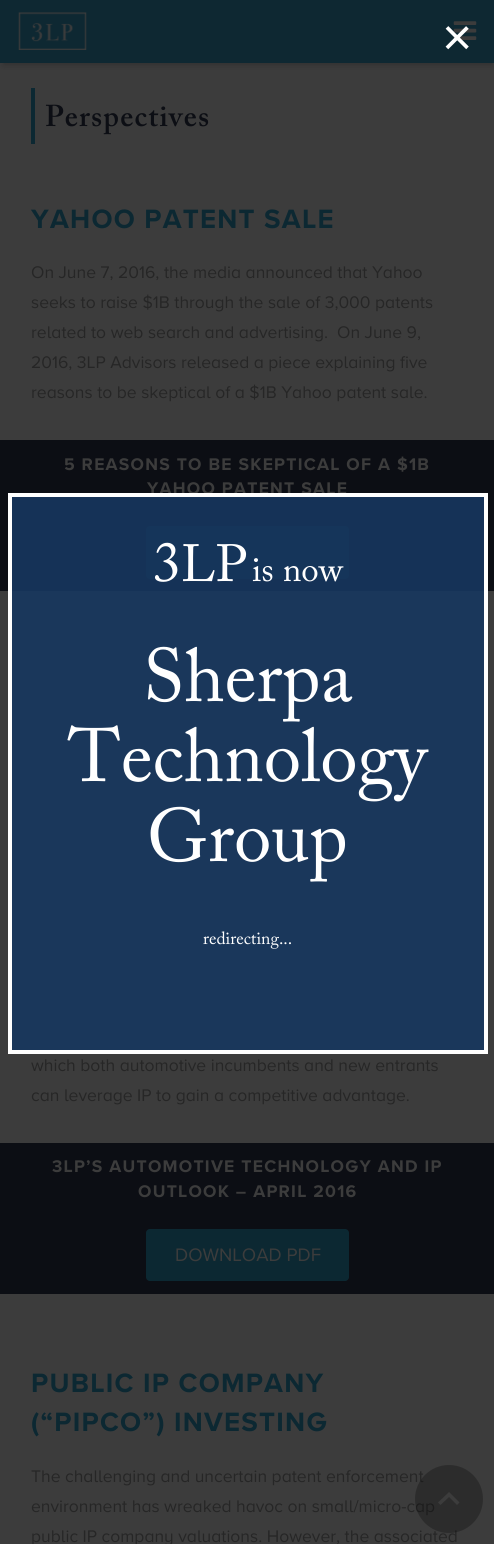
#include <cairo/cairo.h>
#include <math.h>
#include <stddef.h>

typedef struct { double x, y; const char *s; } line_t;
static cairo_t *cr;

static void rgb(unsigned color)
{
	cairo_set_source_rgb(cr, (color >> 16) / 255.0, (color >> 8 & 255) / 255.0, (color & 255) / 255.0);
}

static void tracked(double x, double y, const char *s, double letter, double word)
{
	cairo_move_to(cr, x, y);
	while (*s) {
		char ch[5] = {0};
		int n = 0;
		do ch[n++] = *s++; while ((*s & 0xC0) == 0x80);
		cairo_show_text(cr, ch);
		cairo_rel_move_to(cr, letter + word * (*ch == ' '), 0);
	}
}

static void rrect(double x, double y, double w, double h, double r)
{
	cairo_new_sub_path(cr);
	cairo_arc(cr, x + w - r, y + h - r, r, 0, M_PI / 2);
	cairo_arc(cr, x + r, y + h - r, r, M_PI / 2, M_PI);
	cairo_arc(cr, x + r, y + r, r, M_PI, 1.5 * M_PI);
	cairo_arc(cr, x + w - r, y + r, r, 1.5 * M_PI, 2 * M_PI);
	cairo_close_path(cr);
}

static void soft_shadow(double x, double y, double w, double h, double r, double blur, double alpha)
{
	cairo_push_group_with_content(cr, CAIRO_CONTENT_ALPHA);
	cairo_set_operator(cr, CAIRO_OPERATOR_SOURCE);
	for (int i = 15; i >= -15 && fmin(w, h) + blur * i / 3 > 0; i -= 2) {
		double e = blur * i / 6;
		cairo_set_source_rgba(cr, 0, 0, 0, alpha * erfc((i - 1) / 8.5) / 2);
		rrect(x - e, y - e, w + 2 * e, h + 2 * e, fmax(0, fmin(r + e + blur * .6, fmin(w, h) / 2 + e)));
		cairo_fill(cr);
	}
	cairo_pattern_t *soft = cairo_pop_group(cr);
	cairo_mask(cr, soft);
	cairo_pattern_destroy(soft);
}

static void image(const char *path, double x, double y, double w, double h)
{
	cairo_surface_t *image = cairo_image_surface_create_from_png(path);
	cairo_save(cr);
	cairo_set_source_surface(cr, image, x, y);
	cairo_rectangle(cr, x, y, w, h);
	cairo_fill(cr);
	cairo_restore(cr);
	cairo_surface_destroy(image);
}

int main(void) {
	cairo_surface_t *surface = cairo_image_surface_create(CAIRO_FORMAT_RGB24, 494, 1544);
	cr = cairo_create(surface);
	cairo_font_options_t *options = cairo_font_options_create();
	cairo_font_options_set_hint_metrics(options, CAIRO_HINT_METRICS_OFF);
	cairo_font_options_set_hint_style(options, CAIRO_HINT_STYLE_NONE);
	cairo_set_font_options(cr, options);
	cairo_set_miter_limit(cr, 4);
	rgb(0x3c3c3c);
	cairo_paint(cr);
	rgb(0x090909);
	soft_shadow(3, 8, 490, 57, 0, 3, 0.22);
	rgb(0x0e2832);
	cairo_rectangle(cr, 0, 0, 494, 63);
	cairo_fill(cr);
	image("img/1.png", 18, 12, 69, 38);
	image("img/2.png", 453, 21, 24, 19);
	rgb(0x0c2832);
	cairo_rectangle(cr, 31, 88, 4, 56);
	cairo_fill(cr);
	rgb(0x0c0e14);
	cairo_rectangle(cr, 0, 440, 494, 151);
	cairo_fill(cr);
	rgb(0x0c2832);
	rrect(146, 526, 203, 53, 4);
	cairo_fill(cr);
	rgb(0x0c0e14);
	cairo_rectangle(cr, 0, 1143, 494, 151);
	cairo_fill(cr);
	rgb(0x0c2832);
	rrect(146, 1229, 203, 52, 4);
	cairo_fill(cr);
	cairo_select_font_face(cr, "Liberation Sans", CAIRO_FONT_SLANT_NORMAL, CAIRO_FONT_WEIGHT_NORMAL);
	cairo_set_font_size(cr, 52);
	rgb(0xffffff);
	cairo_move_to(cr, 442, 55);
	cairo_show_text(cr, "×");
	cairo_select_font_face(cr, "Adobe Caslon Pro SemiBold", CAIRO_FONT_SLANT_NORMAL, CAIRO_FONT_WEIGHT_NORMAL);
	cairo_set_font_size(cr, 30);
	rgb(0x0c0e14);
	tracked(45, 126, "Perspectives", 1.25, 0);
	cairo_select_font_face(cr, "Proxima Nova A", CAIRO_FONT_SLANT_NORMAL, CAIRO_FONT_WEIGHT_BOLD);
	cairo_set_font_size(cr, 27.5);
	rgb(0x0c2832);
	tracked(31, 228, "YAHOO PATENT SALE", 1.25, 0);
	cairo_select_font_face(cr, "Proxima Nova A", CAIRO_FONT_SLANT_NORMAL, CAIRO_FONT_WEIGHT_NORMAL);
	cairo_set_font_size(cr, 17.5);
	rgb(0x262626);
	{
		static const line_t items[] = {
			{31, 278, "On June 7, 2016, the media announced that Yahoo"},
			{31, 308, "seeks to raise $1B through the sale of 3,000 patents"},
			{31, 338, "related to web search and advertising.  On June 9,"},
			{31, 368, "2016, 3LP Advisors released a piece explaining five"},
			{31, 398, "reasons to be skeptical of a $1B Yahoo patent sale."},
		};
		for (size_t i = 0; i < sizeof items / sizeof *items; i++) {
			cairo_move_to(cr, items[i].x, items[i].y);
			cairo_show_text(cr, items[i].s);
		}
	}
	cairo_select_font_face(cr, "Proxima Nova A", CAIRO_FONT_SLANT_NORMAL, CAIRO_FONT_WEIGHT_BOLD);
	rgb(0x3c3c3c);
	tracked(64, 470, "5 REASONS TO BE SKEPTICAL OF A $1B", 1.25, 0);
	tracked(147, 494, "YAHOO PATENT SALE", 1.25, 0);
	cairo_set_source_rgba(cr, 0.09, 0.216, 0.369, 0.9);
	cairo_rectangle(cr, 10, 495, 476, 557);
	cairo_fill_preserve(cr);
	rgb(0xffffff);
	cairo_set_line_width(cr, 4);
	cairo_stroke(cr);
	cairo_select_font_face(cr, "Adobe Caslon Pro", CAIRO_FONT_SLANT_NORMAL, CAIRO_FONT_WEIGHT_NORMAL);
	cairo_move_to(cr, 203, 944);
	cairo_show_text(cr, "redirecting...");
	cairo_set_font_size(cr, 75);
	{
		static const line_t items[] = {
			{147, 861, "Group"},
			{68, 781, "Technology"},
			{143, 701, "Sherpa"},
		};
		for (size_t i = 0; i < sizeof items / sizeof *items; i++) {
			cairo_move_to(cr, items[i].x, items[i].y);
			cairo_show_text(cr, items[i].s);
		}
	}
	cairo_set_font_size(cr, 35);
	cairo_move_to(cr, 252, 581);
	cairo_show_text(cr, "is now");
	cairo_set_font_size(cr, 52);
	cairo_move_to(cr, 181, 581);
	cairo_show_text(cr, "LP");
	cairo_set_font_size(cr, 56);
	cairo_move_to(cr, 153, 581);
	cairo_show_text(cr, "3");
	cairo_select_font_face(cr, "Proxima Nova A", CAIRO_FONT_SLANT_NORMAL, CAIRO_FONT_WEIGHT_NORMAL);
	cairo_set_font_size(cr, 17.5);
	rgb(0x262626);
	cairo_move_to(cr, 31, 1071);
	cairo_show_text(cr, "which both automotive incumbents and new entrants");
	cairo_move_to(cr, 31, 1101);
	cairo_show_text(cr, "can leverage IP to gain a competitive advantage.");
	cairo_select_font_face(cr, "Proxima Nova A", CAIRO_FONT_SLANT_NORMAL, CAIRO_FONT_WEIGHT_BOLD);
	rgb(0x3c3c3c);
	tracked(52, 1172, "3LP’S AUTOMOTIVE TECHNOLOGY AND IP", 1.25, 0);
	tracked(138, 1197, "OUTLOOK – APRIL 2016", 1.25, 0);
	cairo_select_font_face(cr, "Proxima Nova A", CAIRO_FONT_SLANT_NORMAL, CAIRO_FONT_WEIGHT_NORMAL);
	cairo_set_font_size(cr, 18.75);
	cairo_move_to(cr, 175, 1261);
	cairo_show_text(cr, "DOWNLOAD PDF");
	cairo_select_font_face(cr, "Proxima Nova A", CAIRO_FONT_SLANT_NORMAL, CAIRO_FONT_WEIGHT_BOLD);
	cairo_set_font_size(cr, 27.5);
	rgb(0x0c2832);
	tracked(31, 1392, "PUBLIC IP COMPANY", 1.25, 0);
	tracked(31, 1431, "(“PIPCO”) INVESTING", 1.25, 0);
	cairo_select_font_face(cr, "Proxima Nova A", CAIRO_FONT_SLANT_NORMAL, CAIRO_FONT_WEIGHT_NORMAL);
	cairo_set_font_size(cr, 17.5);
	rgb(0x262626);
	{
		static const line_t items[] = {
			{31, 1482, "The challenging and uncertain patent enforcement"},
			{31, 1512, "environment has wreaked havoc on small/micro-cap"},
			{31, 1542, "public IP company valuations. However, the associated"},
		};
		for (size_t i = 0; i < sizeof items / sizeof *items; i++) {
			cairo_move_to(cr, items[i].x, items[i].y);
			cairo_show_text(cr, items[i].s);
		}
	}
	cairo_set_source_rgba(cr, 0.035, 0.035, 0.035, 0.3);
	cairo_new_path(cr);
	cairo_arc(cr, 449, 1499, 34, 0, 2 * M_PI);
	cairo_fill(cr);
	rgb(0x3c3c3c);
	cairo_new_path(cr);
	cairo_move_to(cr, 449, 1492);
	cairo_line_to(cr, 438, 1502.5);
	cairo_line_to(cr, 440.5, 1505);
	cairo_line_to(cr, 449, 1497);
	cairo_line_to(cr, 457, 1505);
	cairo_line_to(cr, 459.5, 1502.5);
	cairo_close_path(cr);
	cairo_fill(cr);
	cairo_surface_write_to_png(surface, "page.png");
	cairo_font_options_destroy(options);
	cairo_destroy(cr);
	cairo_surface_destroy(surface);
	return 0;
}
